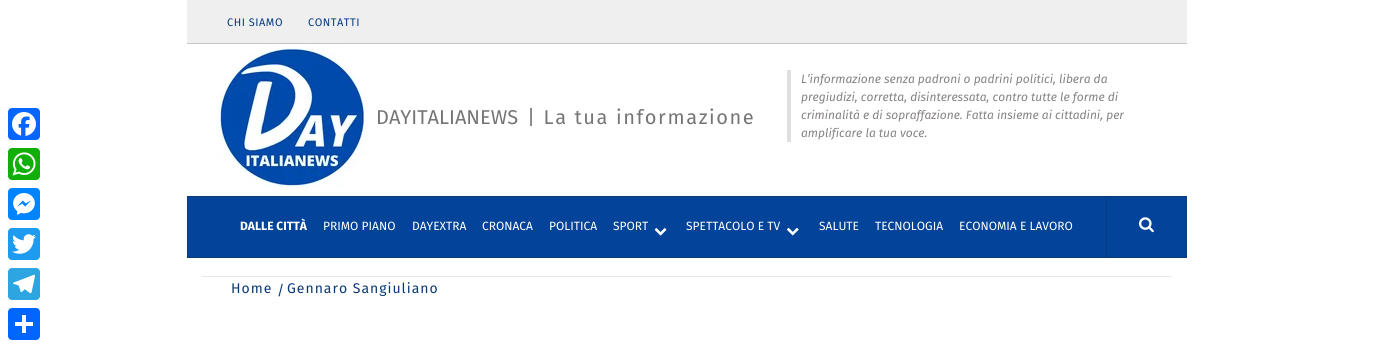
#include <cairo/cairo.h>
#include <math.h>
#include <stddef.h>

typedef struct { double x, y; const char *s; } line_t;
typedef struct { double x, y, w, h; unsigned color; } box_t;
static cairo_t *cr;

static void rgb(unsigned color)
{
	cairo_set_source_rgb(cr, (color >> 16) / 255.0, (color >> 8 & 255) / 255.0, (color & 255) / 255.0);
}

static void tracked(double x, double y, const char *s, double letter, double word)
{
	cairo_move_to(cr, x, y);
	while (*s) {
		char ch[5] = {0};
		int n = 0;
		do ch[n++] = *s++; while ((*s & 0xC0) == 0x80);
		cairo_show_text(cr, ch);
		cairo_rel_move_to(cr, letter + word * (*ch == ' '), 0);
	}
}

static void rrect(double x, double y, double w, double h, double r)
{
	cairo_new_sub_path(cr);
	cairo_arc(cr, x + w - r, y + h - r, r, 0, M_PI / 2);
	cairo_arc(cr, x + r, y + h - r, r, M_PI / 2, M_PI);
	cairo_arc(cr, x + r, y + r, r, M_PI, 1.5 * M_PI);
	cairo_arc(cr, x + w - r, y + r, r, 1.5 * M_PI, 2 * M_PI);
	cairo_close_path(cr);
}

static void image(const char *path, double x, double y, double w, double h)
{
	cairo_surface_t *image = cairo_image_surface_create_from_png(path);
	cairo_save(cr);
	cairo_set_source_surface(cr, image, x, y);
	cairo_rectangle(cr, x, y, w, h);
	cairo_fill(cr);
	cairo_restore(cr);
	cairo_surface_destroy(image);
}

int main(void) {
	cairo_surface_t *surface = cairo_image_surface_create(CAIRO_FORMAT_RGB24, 1373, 348);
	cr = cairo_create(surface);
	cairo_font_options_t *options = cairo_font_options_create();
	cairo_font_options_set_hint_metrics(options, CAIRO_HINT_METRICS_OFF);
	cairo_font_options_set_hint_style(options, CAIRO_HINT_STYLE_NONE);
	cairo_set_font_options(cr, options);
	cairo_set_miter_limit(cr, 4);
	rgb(0xffffff);
	cairo_paint(cr);
	rgb(0x0866ff);
	rrect(8, 108, 32, 32, 4);
	cairo_fill(cr);
	image("img/1.png", 12, 112, 24, 24);
	rgb(0x12af0a);
	rrect(8, 148, 32, 32, 4);
	cairo_fill(cr);
	image("img/2.png", 12, 152, 24, 24);
	rgb(0x0084ff);
	rrect(8, 188, 32, 32, 4);
	cairo_fill(cr);
	image("img/3.png", 13, 193, 22, 22);
	rgb(0x1d9bf0);
	rrect(8, 228, 32, 32, 4);
	cairo_fill(cr);
	image("img/4.png", 12, 234, 24, 20);
	rgb(0x2ca5e0);
	rrect(8, 268, 32, 32, 4);
	cairo_fill(cr);
	image("img/5.png", 13, 274, 22, 20);
	rgb(0x0166ff);
	rrect(8, 308, 32, 32, 4);
	cairo_fill(cr);
	{
		static const box_t items[] = {
			{22, 315, 4, 18, 0xffffff},
			{15, 322, 18, 4, 0xffffff},
			{187, 0, 1000, 43, 0xefefef},
			{187, 43, 1000, 1, 0xc5c5c5},
		};
		for (size_t i = 0; i < sizeof items / sizeof *items; i++) {
			rgb(items[i].color);
			cairo_rectangle(cr, items[i].x, items[i].y, items[i].w, items[i].h);
			cairo_fill(cr);
		}
	}
	image("img/6.png", 217, 45, 150, 144);
	{
		static const box_t items[] = {
			{787, 70, 4, 72, 0xdedede},
			{188, 197, 998, 60, 0x03449a},
			{187, 196, 1000, 1, 0x0c3b79},
			{187, 257, 1000, 1, 0x0c3b79},
			{1186, 197, 1, 60, 0x0c3b79},
			{187, 197, 1, 60, 0x0c3b79},
		};
		for (size_t i = 0; i < sizeof items / sizeof *items; i++) {
			rgb(items[i].color);
			cairo_rectangle(cr, items[i].x, items[i].y, items[i].w, items[i].h);
			cairo_fill(cr);
		}
	}
	image("img/7.png", 654, 228, 13, 8);
	image("img/8.png", 786, 227, 13, 9);
	cairo_rectangle(cr, 1106, 197, 1, 61);
	cairo_fill(cr);
	image("img/9.png", 1139, 217, 15, 16);
	rgb(0xe8e8e8);
	cairo_rectangle(cr, 202, 276, 970, 1);
	cairo_fill(cr);
	cairo_select_font_face(cr, "Fira Sans", CAIRO_FONT_SLANT_NORMAL, CAIRO_FONT_WEIGHT_NORMAL);
	cairo_set_font_size(cr, 11);
	rgb(0x083b80);
	tracked(227, 26, "CHI SIAMO", 0.5, 0);
	tracked(308, 26, "CONTATTI", 0.5, 0);
	cairo_set_font_size(cr, 20);
	rgb(0x757575);
	cairo_move_to(cr, 376, 124);
	cairo_show_text(cr, "DAYITALIANEWS");
	tracked(527, 124, "| La tua informazione", 1.6, 0);
	cairo_select_font_face(cr, "Fira Sans", CAIRO_FONT_SLANT_ITALIC, CAIRO_FONT_WEIGHT_NORMAL);
	cairo_set_font_size(cr, 12);
	rgb(0x868282);
	{
		static const line_t items[] = {
			{801, 83, "L’informazione senza padroni o padrini politici, libera da"},
			{801, 101, "pregiudizi, corretta, disinteressata, contro tutte le forme di"},
			{801, 119, "criminalità e di sopraffazione. Fatta insieme ai cittadini, per"},
			{801, 137, "amplificare la tua voce."},
		};
		for (size_t i = 0; i < sizeof items / sizeof *items; i++) {
			cairo_move_to(cr, items[i].x, items[i].y);
			cairo_show_text(cr, items[i].s);
		}
	}
	cairo_select_font_face(cr, "Fira Sans", CAIRO_FONT_SLANT_NORMAL, CAIRO_FONT_WEIGHT_BOLD);
	rgb(0xffffff);
	cairo_move_to(cr, 240, 230);
	cairo_show_text(cr, "DALLE CITTÀ");
	cairo_select_font_face(cr, "Fira Sans", CAIRO_FONT_SLANT_NORMAL, CAIRO_FONT_WEIGHT_NORMAL);
	{
		static const line_t items[] = {
			{323, 230, "PRIMO PIANO"},
			{412, 230, "DAYEXTRA"},
			{482, 230, "CRONACA"},
			{549, 230, "POLITICA"},
			{613, 230, "SPORT"},
			{686, 230, "SPETTACOLO E TV"},
			{819, 230, "SALUTE"},
			{875, 230, "TECNOLOGIA"},
			{959, 230, "ECONOMIA E LAVORO"},
		};
		for (size_t i = 0; i < sizeof items / sizeof *items; i++) {
			cairo_move_to(cr, items[i].x, items[i].y);
			cairo_show_text(cr, items[i].s);
		}
	}
	cairo_set_font_size(cr, 14);
	rgb(0x093875);
	{
		static const line_t items[] = {
			{231, 293, "Home"},
			{277, 295, "/"},
			{287, 293, "Gennaro Sangiuliano"},
		};
		for (size_t i = 0; i < sizeof items / sizeof *items; i++) {
			tracked(items[i].x, items[i].y, items[i].s, 1, 0);
		}
	}
	cairo_surface_write_to_png(surface, "page.png");
	cairo_font_options_destroy(options);
	cairo_destroy(cr);
	cairo_surface_destroy(surface);
	return 0;
}
